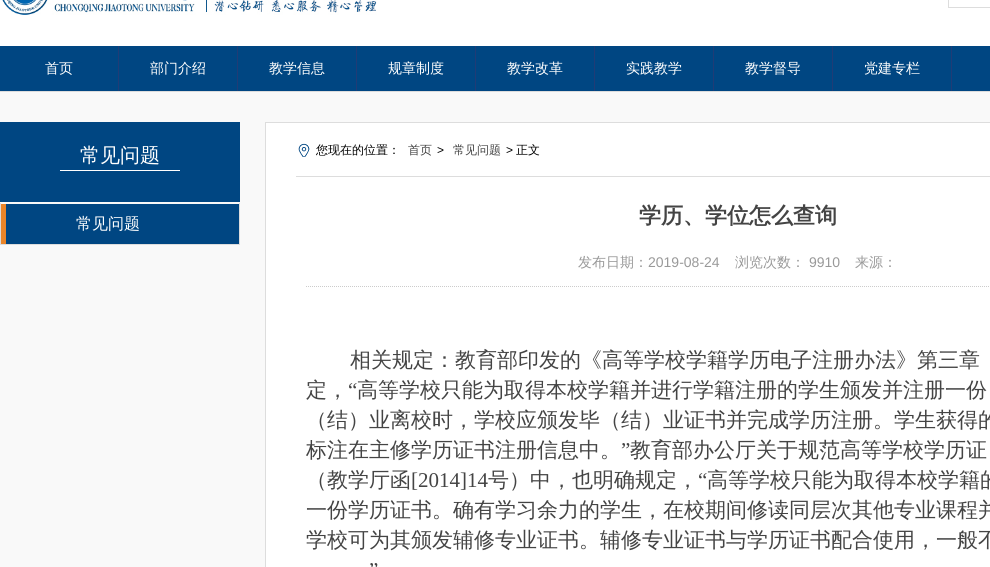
#include <cairo/cairo.h>
#include <math.h>
#include <stddef.h>

typedef struct { double x, y; const char *s; } line_t;
typedef struct { double x, y, w, h; unsigned color; } box_t;
static cairo_t *cr;

static void rgb(unsigned color)
{
	cairo_set_source_rgb(cr, (color >> 16) / 255.0, (color >> 8 & 255) / 255.0, (color & 255) / 255.0);
}

static void image(const char *path, double x, double y, double w, double h)
{
	cairo_surface_t *image = cairo_image_surface_create_from_png(path);
	cairo_save(cr);
	cairo_set_source_surface(cr, image, x, y);
	cairo_rectangle(cr, x, y, w, h);
	cairo_fill(cr);
	cairo_restore(cr);
	cairo_surface_destroy(image);
}

int main(void) {
	cairo_surface_t *surface = cairo_image_surface_create(CAIRO_FORMAT_RGB24, 990, 567);
	cr = cairo_create(surface);
	cairo_font_options_t *options = cairo_font_options_create();
	cairo_font_options_set_hint_metrics(options, CAIRO_HINT_METRICS_OFF);
	cairo_font_options_set_hint_style(options, CAIRO_HINT_STYLE_NONE);
	cairo_set_font_options(cr, options);
	cairo_set_miter_limit(cr, 4);
	rgb(0xffffff);
	cairo_paint(cr);
	image("img/1.png", 2, 0, 375, 15);
	cairo_rectangle(cr, 948.5, -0.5, 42, 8);
	rgb(0xdddddd);
	cairo_set_line_width(cr, 1);
	cairo_stroke(cr);
	{
		static const box_t items[] = {
			{0, 46, 990, 45, 0x004682},
			{118, 46, 1, 45, 0x203c76},
			{237, 46, 1, 45, 0x203c76},
			{356, 46, 1, 45, 0x203c76},
			{475, 46, 1, 45, 0x203c76},
			{594, 46, 1, 45, 0x203c76},
			{713, 46, 1, 45, 0x203c76},
			{832, 46, 1, 45, 0x203c76},
			{951, 46, 1, 45, 0x203c76},
			{0, 92, 990, 475, 0xf9f9f9},
			{0, 91, 990, 1, 0xdddddd},
			{0, 122, 240, 80, 0x004682},
			{60, 170, 120, 1, 0xffffff},
			{6, 204, 233, 40, 0x004682},
			{239, 203, 1, 42, 0xdddddd},
			{0, 244, 240, 1, 0xdddddd},
			{0, 203, 1, 42, 0xdddddd},
			{1, 204, 5, 40, 0xea8529},
		};
		for (size_t i = 0; i < sizeof items / sizeof *items; i++) {
			rgb(items[i].color);
			cairo_rectangle(cr, items[i].x, items[i].y, items[i].w, items[i].h);
			cairo_fill(cr);
		}
	}
	rgb(0xffffff);
	cairo_rectangle(cr, 265.5, 122.5, 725, 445);
	cairo_fill_preserve(cr);
	rgb(0xdddddd);
	cairo_stroke(cr);
	cairo_rectangle(cr, 296, 176, 694, 1);
	cairo_fill(cr);
	image("img/2.png", 298, 143, 12, 14);
	cairo_new_path(cr);
	cairo_move_to(cr, 306, 286.5);
	cairo_line_to(cr, 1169, 286.5);
	rgb(0xcccccc);
	cairo_set_dash(cr, (double[]){1, 1}, 2, 0);
	cairo_stroke(cr);
	cairo_select_font_face(cr, "WenQuanYi Zen Hei Medium", CAIRO_FONT_SLANT_NORMAL, CAIRO_FONT_WEIGHT_NORMAL);
	cairo_set_font_size(cr, 14);
	rgb(0xffffff);
	{
		static const line_t items[] = {
			{45, 73, "首页"},
			{150, 73, "部门介绍"},
			{269, 73, "教学信息"},
			{388, 73, "规章制度"},
			{507, 73, "教学改革"},
			{626, 73, "实践教学"},
			{745, 73, "教学督导"},
			{864, 73, "党建专栏"},
		};
		for (size_t i = 0; i < sizeof items / sizeof *items; i++) {
			cairo_move_to(cr, items[i].x, items[i].y);
			cairo_show_text(cr, items[i].s);
		}
	}
	cairo_set_font_size(cr, 20);
	cairo_move_to(cr, 80, 162);
	cairo_show_text(cr, "常见问题");
	cairo_set_font_size(cr, 16);
	cairo_move_to(cr, 76, 229);
	cairo_show_text(cr, "常见问题");
	cairo_set_font_size(cr, 12);
	rgb(0x000000);
	cairo_move_to(cr, 316, 154);
	cairo_show_text(cr, "您现在的位置：");
	rgb(0x444444);
	cairo_move_to(cr, 408, 154);
	cairo_show_text(cr, "首页");
	cairo_select_font_face(cr, "Liberation Sans", CAIRO_FONT_SLANT_NORMAL, CAIRO_FONT_WEIGHT_NORMAL);
	rgb(0x000000);
	cairo_move_to(cr, 437, 154);
	cairo_show_text(cr, ">");
	cairo_select_font_face(cr, "WenQuanYi Zen Hei Medium", CAIRO_FONT_SLANT_NORMAL, CAIRO_FONT_WEIGHT_NORMAL);
	rgb(0x444444);
	cairo_move_to(cr, 453, 154);
	cairo_show_text(cr, "常见问题");
	cairo_select_font_face(cr, "Liberation Sans", CAIRO_FONT_SLANT_NORMAL, CAIRO_FONT_WEIGHT_NORMAL);
	rgb(0x000000);
	cairo_move_to(cr, 506, 154);
	cairo_show_text(cr, ">");
	cairo_select_font_face(cr, "WenQuanYi Zen Hei Medium", CAIRO_FONT_SLANT_NORMAL, CAIRO_FONT_WEIGHT_NORMAL);
	cairo_move_to(cr, 516, 154);
	cairo_show_text(cr, "正文");
	cairo_select_font_face(cr, "WenQuanYi Zen Hei", CAIRO_FONT_SLANT_NORMAL, CAIRO_FONT_WEIGHT_BOLD);
	cairo_set_font_size(cr, 22);
	rgb(0x444444);
	cairo_move_to(cr, 639, 223);
	cairo_show_text(cr, "学历、学位怎么查询");
	cairo_select_font_face(cr, "WenQuanYi Zen Hei Medium", CAIRO_FONT_SLANT_NORMAL, CAIRO_FONT_WEIGHT_NORMAL);
	cairo_set_font_size(cr, 14);
	rgb(0x999999);
	cairo_move_to(cr, 578, 267);
	cairo_show_text(cr, "发布日期：");
	cairo_select_font_face(cr, "Liberation Sans", CAIRO_FONT_SLANT_NORMAL, CAIRO_FONT_WEIGHT_NORMAL);
	cairo_move_to(cr, 648, 267);
	cairo_show_text(cr, "2019-08-24");
	cairo_select_font_face(cr, "WenQuanYi Zen Hei Medium", CAIRO_FONT_SLANT_NORMAL, CAIRO_FONT_WEIGHT_NORMAL);
	cairo_move_to(cr, 735, 267);
	cairo_show_text(cr, "浏览次数：");
	cairo_select_font_face(cr, "Liberation Sans", CAIRO_FONT_SLANT_NORMAL, CAIRO_FONT_WEIGHT_NORMAL);
	cairo_move_to(cr, 809, 267);
	cairo_show_text(cr, "9910");
	cairo_select_font_face(cr, "WenQuanYi Zen Hei Medium", CAIRO_FONT_SLANT_NORMAL, CAIRO_FONT_WEIGHT_NORMAL);
	cairo_move_to(cr, 855, 267);
	cairo_show_text(cr, "来源：");
	cairo_set_font_size(cr, 21);
	rgb(0x444444);
	cairo_move_to(cr, 350, 367);
	cairo_show_text(cr, "相关规定：教育部印发的《高等学校学籍学历电子注册办法》第三章");
	cairo_move_to(cr, 306, 397);
	cairo_show_text(cr, "定，");
	cairo_select_font_face(cr, "Liberation Serif", CAIRO_FONT_SLANT_NORMAL, CAIRO_FONT_WEIGHT_NORMAL);
	cairo_move_to(cr, 348, 397);
	cairo_show_text(cr, "“");
	cairo_select_font_face(cr, "WenQuanYi Zen Hei Medium", CAIRO_FONT_SLANT_NORMAL, CAIRO_FONT_WEIGHT_NORMAL);
	{
		static const line_t items[] = {
			{357, 397, "高等学校只能为取得本校学籍并进行学籍注册的学生颁发并注册一份"},
			{306, 427, "（结）业离校时，学校应颁发毕（结）业证书并完成学历注册。学生获得的"},
			{306, 457, "标注在主修学历证书注册信息中。"},
		};
		for (size_t i = 0; i < sizeof items / sizeof *items; i++) {
			cairo_move_to(cr, items[i].x, items[i].y);
			cairo_show_text(cr, items[i].s);
		}
	}
	cairo_select_font_face(cr, "Liberation Serif", CAIRO_FONT_SLANT_NORMAL, CAIRO_FONT_WEIGHT_NORMAL);
	cairo_move_to(cr, 621, 457);
	cairo_show_text(cr, "”");
	cairo_select_font_face(cr, "WenQuanYi Zen Hei Medium", CAIRO_FONT_SLANT_NORMAL, CAIRO_FONT_WEIGHT_NORMAL);
	cairo_move_to(cr, 630, 457);
	cairo_show_text(cr, "教育部办公厅关于规范高等学校学历证");
	cairo_move_to(cr, 306, 487);
	cairo_show_text(cr, "（教学厅函");
	cairo_select_font_face(cr, "Liberation Serif", CAIRO_FONT_SLANT_NORMAL, CAIRO_FONT_WEIGHT_NORMAL);
	cairo_move_to(cr, 411, 487);
	cairo_show_text(cr, "[2014]14");
	cairo_select_font_face(cr, "WenQuanYi Zen Hei Medium", CAIRO_FONT_SLANT_NORMAL, CAIRO_FONT_WEIGHT_NORMAL);
	cairo_move_to(cr, 488, 487);
	cairo_show_text(cr, "号）中，也明确规定，");
	cairo_select_font_face(cr, "Liberation Serif", CAIRO_FONT_SLANT_NORMAL, CAIRO_FONT_WEIGHT_NORMAL);
	cairo_move_to(cr, 698, 487);
	cairo_show_text(cr, "“");
	cairo_select_font_face(cr, "WenQuanYi Zen Hei Medium", CAIRO_FONT_SLANT_NORMAL, CAIRO_FONT_WEIGHT_NORMAL);
	{
		static const line_t items[] = {
			{707, 487, "高等学校只能为取得本校学籍的"},
			{306, 517, "一份学历证书。确有学习余力的学生，在校期间修读同层次其他专业课程并"},
			{306, 547, "学校可为其颁发辅修专业证书。辅修专业证书与学历证书配合使用，一般不"},
		};
		for (size_t i = 0; i < sizeof items / sizeof *items; i++) {
			cairo_move_to(cr, items[i].x, items[i].y);
			cairo_show_text(cr, items[i].s);
		}
	}
	cairo_select_font_face(cr, "Liberation Serif", CAIRO_FONT_SLANT_NORMAL, CAIRO_FONT_WEIGHT_NORMAL);
	cairo_move_to(cr, 369, 577);
	cairo_show_text(cr, "”");
	cairo_surface_write_to_png(surface, "page.png");
	cairo_font_options_destroy(options);
	cairo_destroy(cr);
	cairo_surface_destroy(surface);
	return 0;
}
